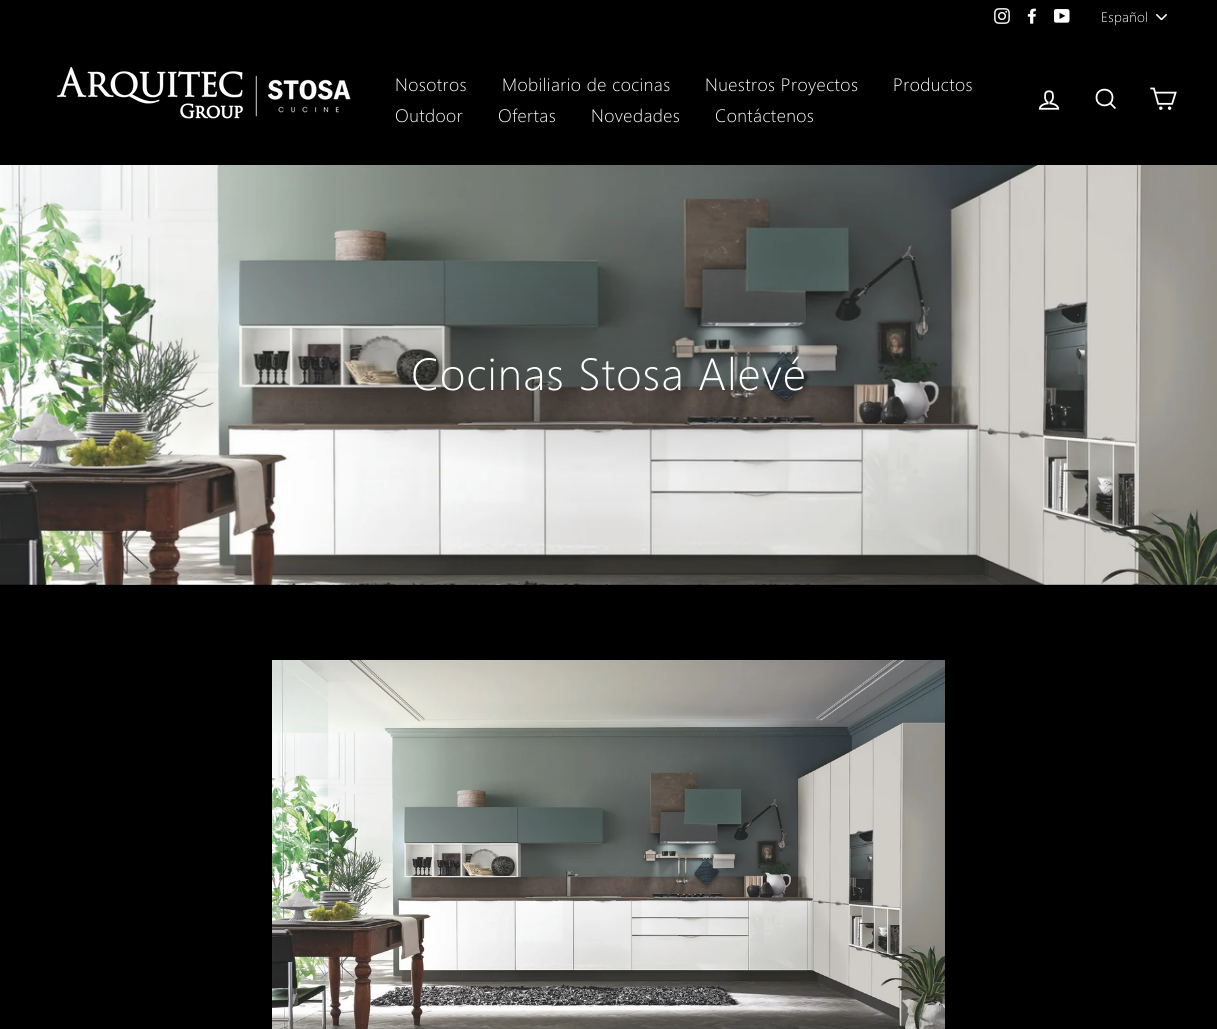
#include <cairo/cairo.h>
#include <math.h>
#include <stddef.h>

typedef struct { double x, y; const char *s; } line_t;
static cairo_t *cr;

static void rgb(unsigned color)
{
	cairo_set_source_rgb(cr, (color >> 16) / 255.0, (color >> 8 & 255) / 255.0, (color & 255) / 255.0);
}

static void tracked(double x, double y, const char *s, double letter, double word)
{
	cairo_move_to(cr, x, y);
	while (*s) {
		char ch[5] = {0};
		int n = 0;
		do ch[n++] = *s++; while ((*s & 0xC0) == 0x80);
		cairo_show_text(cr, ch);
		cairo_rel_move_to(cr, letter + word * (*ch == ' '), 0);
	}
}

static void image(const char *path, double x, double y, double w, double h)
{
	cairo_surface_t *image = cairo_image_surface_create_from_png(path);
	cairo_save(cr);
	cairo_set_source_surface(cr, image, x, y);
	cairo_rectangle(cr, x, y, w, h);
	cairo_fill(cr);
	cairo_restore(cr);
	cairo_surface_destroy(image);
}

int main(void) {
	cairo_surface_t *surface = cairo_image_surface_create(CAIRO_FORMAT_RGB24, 1217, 1029);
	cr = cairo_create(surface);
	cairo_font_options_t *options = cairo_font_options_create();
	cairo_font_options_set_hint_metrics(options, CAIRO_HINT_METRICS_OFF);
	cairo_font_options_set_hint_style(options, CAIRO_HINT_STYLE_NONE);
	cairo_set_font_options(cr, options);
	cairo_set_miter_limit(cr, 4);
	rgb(0x000000);
	cairo_paint(cr);
	image("img/1.png", 994, 8, 16, 16);
	image("img/2.png", 1027, 8, 9, 16);
	image("img/3.png", 1054, 9, 16, 14);
	image("img/4.png", 1156, 14, 11, 6);
	image("img/5.png", 56, 67, 295, 52);
	image("img/6.png", 1038, 90, 22, 20);
	cairo_new_path(cr);
	cairo_move_to(cr, 1112.5, 97.5);
	cairo_curve_to(cr, 1112.5, 108, 1096.5, 108, 1096.5, 97.5);
	cairo_curve_to(cr, 1096.5, 87, 1112.5, 87, 1112.5, 97.5);
	cairo_close_path(cr);
	cairo_move_to(cr, 1115.5, 108.5);
	cairo_line_to(cr, 1110.5, 103.5);
	rgb(0xffffff);
	cairo_set_line_width(cr, 1.8);
	cairo_stroke(cr);
	image("img/7.png", 1150, 87, 27, 23);
	image("img/8.png", 0, 165, 1217, 420);
	image("img/9.png", 272, 660, 673, 369);
	cairo_select_font_face(cr, "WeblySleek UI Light", CAIRO_FONT_SLANT_NORMAL, CAIRO_FONT_WEIGHT_NORMAL);
	cairo_set_font_size(cr, 14);
	tracked(1101, 22, "Español", 0.25, 0);
	cairo_set_font_size(cr, 18);
	{
		static const line_t items[] = {
			{395, 91, "Nosotros"},
			{502, 91, "Mobiliario de cocinas"},
			{705, 91, "Nuestros Proyectos"},
			{893, 91, "Productos"},
			{395, 122, "Outdoor"},
			{498, 122, "Ofertas"},
			{591, 122, "Novedades"},
			{715, 122, "Contáctenos"},
		};
		for (size_t i = 0; i < sizeof items / sizeof *items; i++) {
			tracked(items[i].x, items[i].y, items[i].s, 0.45, 0);
		}
	}
	cairo_set_font_size(cr, 45);
	tracked(411, 390, "Cocinas Stosa Alevé", 1.1, 0);
	cairo_surface_write_to_png(surface, "page.png");
	cairo_font_options_destroy(options);
	cairo_destroy(cr);
	cairo_surface_destroy(surface);
	return 0;
}
